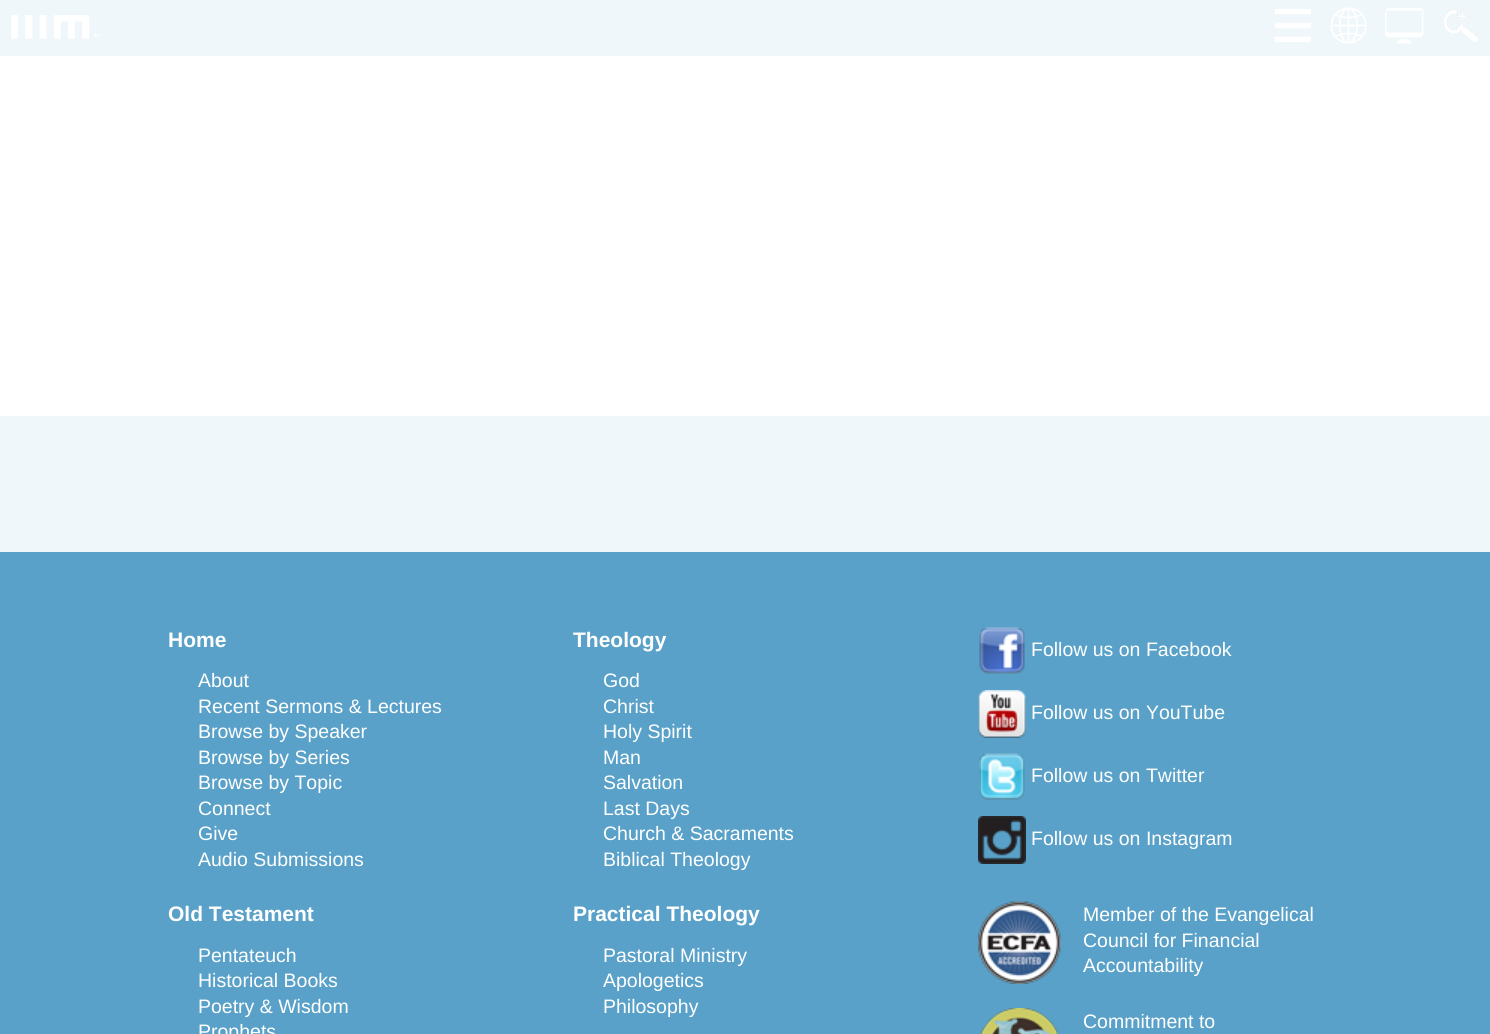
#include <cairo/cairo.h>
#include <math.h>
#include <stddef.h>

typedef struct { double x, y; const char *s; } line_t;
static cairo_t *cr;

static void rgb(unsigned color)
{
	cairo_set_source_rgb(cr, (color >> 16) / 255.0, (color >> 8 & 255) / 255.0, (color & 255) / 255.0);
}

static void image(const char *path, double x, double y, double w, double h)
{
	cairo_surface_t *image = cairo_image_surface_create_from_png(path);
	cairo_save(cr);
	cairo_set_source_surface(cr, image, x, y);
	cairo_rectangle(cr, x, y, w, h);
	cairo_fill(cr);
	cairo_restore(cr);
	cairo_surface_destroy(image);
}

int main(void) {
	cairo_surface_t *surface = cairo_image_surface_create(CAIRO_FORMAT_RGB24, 1490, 1034);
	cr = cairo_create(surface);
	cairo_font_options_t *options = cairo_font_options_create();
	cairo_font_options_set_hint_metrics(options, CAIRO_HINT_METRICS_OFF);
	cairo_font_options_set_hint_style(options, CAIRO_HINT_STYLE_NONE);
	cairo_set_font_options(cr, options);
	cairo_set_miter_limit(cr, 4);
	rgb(0xeff7fa);
	cairo_paint(cr);
	image("img/1.png", 11, 15, 90, 24);
	image("img/2.png", 1275, 9, 36, 33);
	image("img/3.png", 1330, 7, 37, 37);
	image("img/4.png", 1385, 7, 39, 37);
	image("img/5.png", 1443, 8, 35, 35);
	rgb(0xffffff);
	cairo_rectangle(cr, 0, 56, 1490, 360);
	cairo_fill(cr);
	rgb(0x59a1c8);
	cairo_rectangle(cr, 0, 552, 1490, 482);
	cairo_fill(cr);
	image("img/6.png", 979, 627, 46, 47);
	image("img/7.png", 978, 690, 48, 48);
	image("img/8.png", 979, 753, 46, 47);
	image("img/9.png", 978, 816, 48, 48);
	image("img/10.png", 978, 901, 83, 83);
	image("img/11.png", 980, 1008, 79, 26);
	cairo_select_font_face(cr, "Liberation Sans", CAIRO_FONT_SLANT_NORMAL, CAIRO_FONT_WEIGHT_BOLD);
	cairo_set_font_size(cr, 21);
	rgb(0xffffff);
	cairo_move_to(cr, 168, 647);
	cairo_show_text(cr, "Home");
	cairo_select_font_face(cr, "Liberation Sans", CAIRO_FONT_SLANT_NORMAL, CAIRO_FONT_WEIGHT_NORMAL);
	cairo_set_font_size(cr, 19.5);
	{
		static const line_t items[] = {
			{198, 687, "About"},
			{198, 713, "Recent Sermons & Lectures"},
			{198, 738, "Browse by Speaker"},
			{198, 764, "Browse by Series"},
			{198, 789, "Browse by Topic"},
			{198, 815, "Connect"},
			{198, 840, "Give"},
			{198, 866, "Audio Submissions"},
		};
		for (size_t i = 0; i < sizeof items / sizeof *items; i++) {
			cairo_move_to(cr, items[i].x, items[i].y);
			cairo_show_text(cr, items[i].s);
		}
	}
	cairo_select_font_face(cr, "Liberation Sans", CAIRO_FONT_SLANT_NORMAL, CAIRO_FONT_WEIGHT_BOLD);
	cairo_set_font_size(cr, 21);
	cairo_move_to(cr, 168, 921);
	cairo_show_text(cr, "Old Testament");
	cairo_select_font_face(cr, "Liberation Sans", CAIRO_FONT_SLANT_NORMAL, CAIRO_FONT_WEIGHT_NORMAL);
	cairo_set_font_size(cr, 19.5);
	{
		static const line_t items[] = {
			{198, 962, "Pentateuch"},
			{198, 987, "Historical Books"},
			{198, 1013, "Poetry & Wisdom"},
			{198, 1038, "Prophets"},
		};
		for (size_t i = 0; i < sizeof items / sizeof *items; i++) {
			cairo_move_to(cr, items[i].x, items[i].y);
			cairo_show_text(cr, items[i].s);
		}
	}
	cairo_select_font_face(cr, "Liberation Sans", CAIRO_FONT_SLANT_NORMAL, CAIRO_FONT_WEIGHT_BOLD);
	cairo_set_font_size(cr, 21);
	cairo_move_to(cr, 573, 647);
	cairo_show_text(cr, "Theology");
	cairo_select_font_face(cr, "Liberation Sans", CAIRO_FONT_SLANT_NORMAL, CAIRO_FONT_WEIGHT_NORMAL);
	cairo_set_font_size(cr, 19.5);
	{
		static const line_t items[] = {
			{603, 687, "God"},
			{603, 713, "Christ"},
			{603, 738, "Holy Spirit"},
			{603, 764, "Man"},
			{603, 789, "Salvation"},
			{603, 815, "Last Days"},
			{603, 840, "Church & Sacraments"},
			{603, 866, "Biblical Theology"},
		};
		for (size_t i = 0; i < sizeof items / sizeof *items; i++) {
			cairo_move_to(cr, items[i].x, items[i].y);
			cairo_show_text(cr, items[i].s);
		}
	}
	cairo_select_font_face(cr, "Liberation Sans", CAIRO_FONT_SLANT_NORMAL, CAIRO_FONT_WEIGHT_BOLD);
	cairo_set_font_size(cr, 21);
	cairo_move_to(cr, 573, 921);
	cairo_show_text(cr, "Practical Theology");
	cairo_select_font_face(cr, "Liberation Sans", CAIRO_FONT_SLANT_NORMAL, CAIRO_FONT_WEIGHT_NORMAL);
	cairo_set_font_size(cr, 19.5);
	{
		static const line_t items[] = {
			{603, 962, "Pastoral Ministry"},
			{603, 987, "Apologetics"},
			{603, 1013, "Philosophy"},
			{1031, 656, "Follow us on Facebook"},
			{1031, 719, "Follow us on YouTube"},
			{1031, 782, "Follow us on Twitter"},
			{1031, 845, "Follow us on Instagram"},
			{1083, 921, "Member of the Evangelical"},
			{1083, 947, "Council for Financial"},
			{1083, 972, "Accountability"},
			{1083, 1028, "Commitment to"},
		};
		for (size_t i = 0; i < sizeof items / sizeof *items; i++) {
			cairo_move_to(cr, items[i].x, items[i].y);
			cairo_show_text(cr, items[i].s);
		}
	}
	cairo_surface_write_to_png(surface, "page.png");
	cairo_font_options_destroy(options);
	cairo_destroy(cr);
	cairo_surface_destroy(surface);
	return 0;
}
